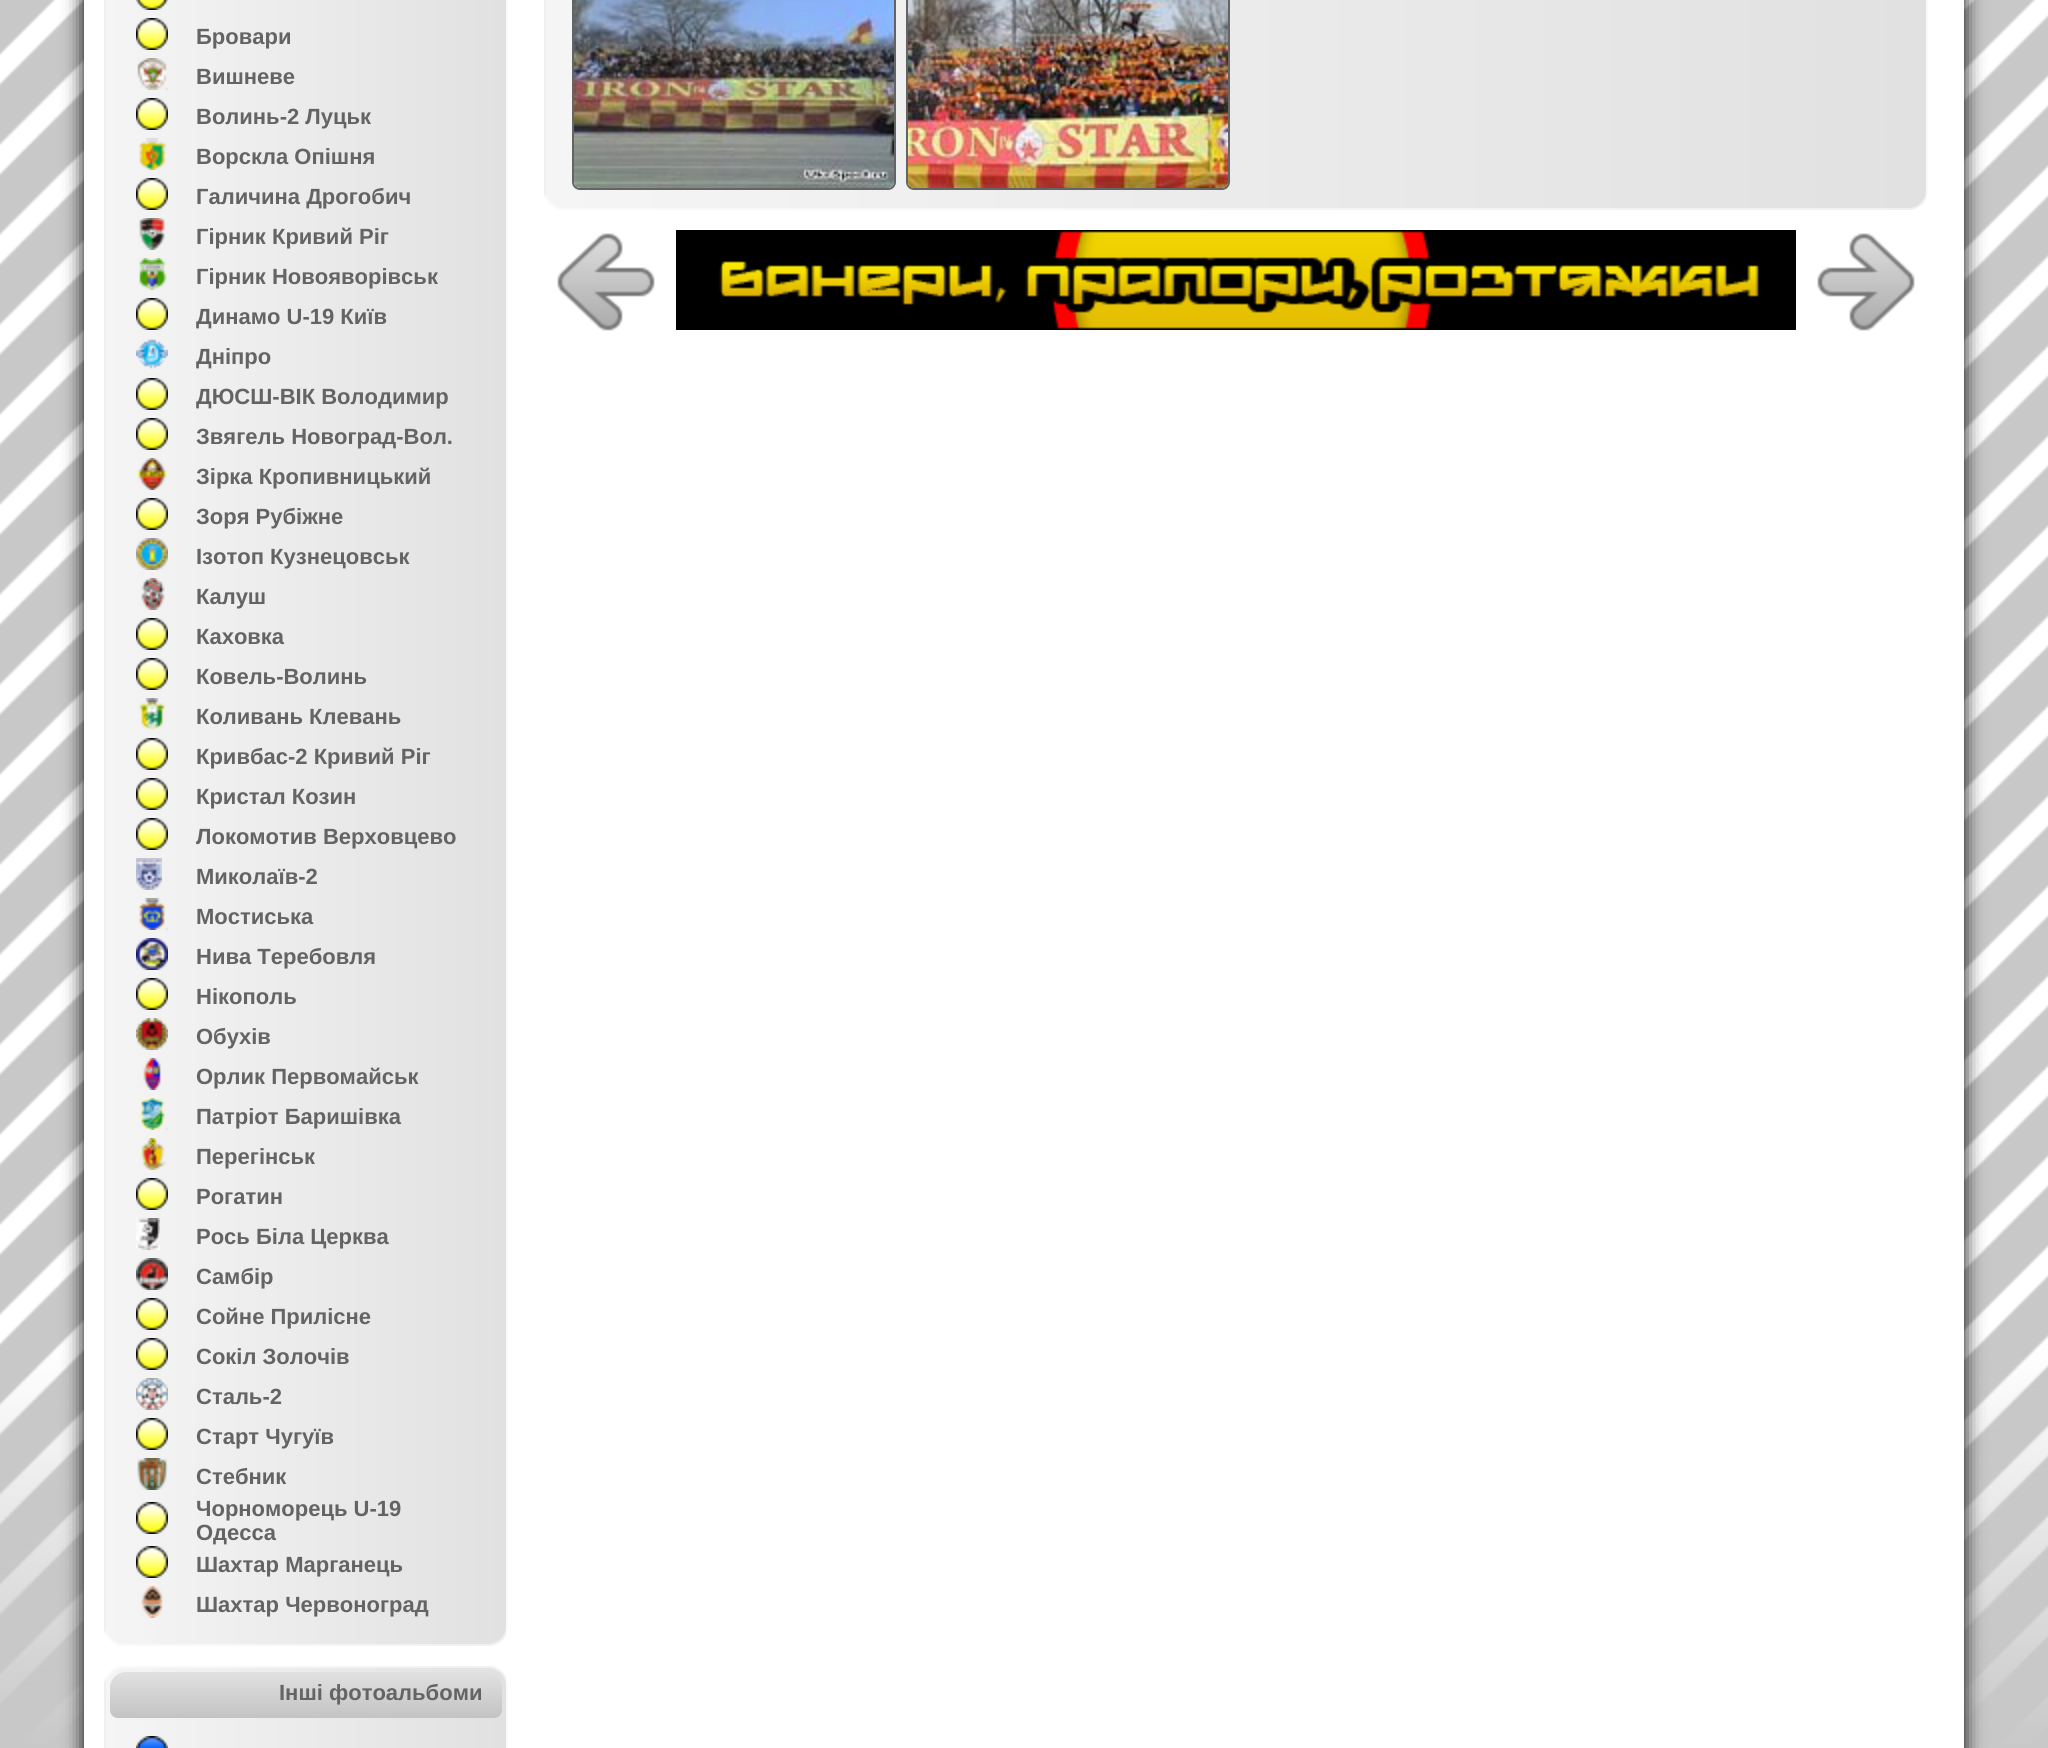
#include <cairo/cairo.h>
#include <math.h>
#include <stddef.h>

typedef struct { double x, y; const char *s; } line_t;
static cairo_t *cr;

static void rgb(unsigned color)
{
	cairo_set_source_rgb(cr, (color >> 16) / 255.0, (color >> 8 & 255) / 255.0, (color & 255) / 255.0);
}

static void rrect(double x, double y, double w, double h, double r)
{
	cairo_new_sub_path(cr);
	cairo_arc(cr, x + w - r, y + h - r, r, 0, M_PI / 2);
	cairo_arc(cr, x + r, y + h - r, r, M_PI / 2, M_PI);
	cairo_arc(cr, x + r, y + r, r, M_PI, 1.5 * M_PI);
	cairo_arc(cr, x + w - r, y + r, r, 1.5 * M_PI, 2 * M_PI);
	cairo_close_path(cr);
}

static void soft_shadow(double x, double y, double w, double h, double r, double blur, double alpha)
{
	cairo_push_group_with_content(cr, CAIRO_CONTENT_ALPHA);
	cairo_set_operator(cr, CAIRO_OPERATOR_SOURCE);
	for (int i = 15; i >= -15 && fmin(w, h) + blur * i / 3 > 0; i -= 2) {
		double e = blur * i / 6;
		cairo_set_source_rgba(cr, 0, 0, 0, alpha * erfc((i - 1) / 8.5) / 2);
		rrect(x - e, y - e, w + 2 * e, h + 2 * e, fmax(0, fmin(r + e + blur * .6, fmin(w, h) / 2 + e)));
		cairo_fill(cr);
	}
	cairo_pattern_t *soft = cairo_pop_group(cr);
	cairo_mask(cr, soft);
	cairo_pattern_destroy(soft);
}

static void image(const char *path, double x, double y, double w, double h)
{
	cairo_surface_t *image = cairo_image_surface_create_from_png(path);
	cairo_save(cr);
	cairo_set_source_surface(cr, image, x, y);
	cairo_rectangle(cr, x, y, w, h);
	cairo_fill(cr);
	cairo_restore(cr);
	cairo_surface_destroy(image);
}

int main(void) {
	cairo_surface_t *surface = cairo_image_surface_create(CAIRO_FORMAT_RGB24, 2048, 1748);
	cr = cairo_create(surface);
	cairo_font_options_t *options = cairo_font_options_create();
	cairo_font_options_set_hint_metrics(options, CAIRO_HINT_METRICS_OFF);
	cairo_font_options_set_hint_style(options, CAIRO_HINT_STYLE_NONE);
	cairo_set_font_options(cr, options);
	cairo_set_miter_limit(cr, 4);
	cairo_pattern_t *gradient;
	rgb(0xffffff);
	cairo_paint(cr);
	image("img/1.png", 0, 0, 2048, 1748);
	rgb(0x000000);
	soft_shadow(84, -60, 1880, 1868, 30, 10, 1);
	rgb(0xffffff);
	cairo_rectangle(cr, 84, 0, 1880, 1748);
	cairo_fill(cr);
	cairo_save(cr);
	rrect(104, -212, 404, 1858, 20);
	cairo_clip(cr);
	gradient = cairo_pattern_create_linear(106, 717, -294, 717);
	cairo_pattern_add_color_stop_rgba(gradient, 0, 0.882, 0.882, 0.882, 1);
	cairo_pattern_add_color_stop_rgba(gradient, 1, 0.961, 0.961, 0.961, 1);
	cairo_set_source(cr, gradient);
	cairo_pattern_destroy(gradient);
	cairo_rectangle(cr, 104, 0, 2, 1635);
	cairo_fill(cr);
	gradient = cairo_pattern_create_linear(506, 717, 106, 717);
	cairo_pattern_add_color_stop_rgba(gradient, 0, 0.882, 0.882, 0.882, 1);
	cairo_pattern_add_color_stop_rgba(gradient, 1, 0.961, 0.961, 0.961, 1);
	cairo_set_source(cr, gradient);
	cairo_pattern_destroy(gradient);
	cairo_rectangle(cr, 106, 0, 400, 1646);
	cairo_fill(cr);
	gradient = cairo_pattern_create_linear(906, 717, 506, 717);
	cairo_pattern_add_color_stop_rgba(gradient, 0, 0.882, 0.882, 0.882, 1);
	cairo_pattern_add_color_stop_rgba(gradient, 1, 0.961, 0.961, 0.961, 1);
	cairo_set_source(cr, gradient);
	cairo_pattern_destroy(gradient);
	cairo_rectangle(cr, 506, 0, 2, 1635);
	cairo_fill(cr);
	cairo_restore(cr);
	rrect(105, -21, 402, 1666, 19);
	cairo_set_source_rgba(cr, 1, 1, 1, 0.5);
	cairo_stroke(cr);
	image("img/2.png", 136, 0, 32, 10);
	image("img/3.png", 136, 18, 32, 32);
	image("img/4.png", 137, 58, 31, 32);
	image("img/3.png", 136, 98, 32, 32);
	image("img/5.png", 139, 138, 28, 32);
	image("img/3.png", 136, 178, 32, 32);
	image("img/6.png", 139, 218, 26, 32);
	image("img/7.png", 139, 258, 28, 32);
	image("img/3.png", 136, 298, 32, 32);
	image("img/8.png", 136, 339, 32, 30);
	image("img/3.png", 136, 378, 32, 32);
	image("img/3.png", 136, 418, 32, 32);
	image("img/9.png", 137, 458, 30, 32);
	image("img/3.png", 136, 498, 32, 32);
	image("img/10.png", 136, 538, 32, 32);
	image("img/11.png", 141, 578, 24, 32);
	image("img/3.png", 136, 618, 32, 32);
	image("img/3.png", 136, 658, 32, 32);
	image("img/12.png", 139, 698, 27, 32);
	image("img/3.png", 136, 738, 32, 32);
	image("img/3.png", 136, 778, 32, 32);
	image("img/3.png", 136, 818, 32, 32);
	image("img/13.png", 136, 858, 26, 32);
	image("img/14.png", 139, 898, 29, 32);
	image("img/15.png", 136, 938, 32, 32);
	image("img/3.png", 136, 978, 32, 32);
	image("img/16.png", 136, 1018, 32, 32);
	image("img/17.png", 143, 1058, 18, 32);
	image("img/18.png", 139, 1098, 29, 32);
	image("img/19.png", 141, 1138, 26, 32);
	image("img/3.png", 136, 1178, 32, 32);
	image("img/20.png", 136, 1218, 24, 32);
	image("img/21.png", 136, 1258, 32, 32);
	image("img/3.png", 136, 1298, 32, 32);
	image("img/3.png", 136, 1338, 32, 32);
	image("img/22.png", 136, 1378, 32, 32);
	image("img/3.png", 136, 1418, 32, 32);
	image("img/23.png", 137, 1458, 31, 32);
	image("img/3.png", 136, 1502, 32, 32);
	image("img/3.png", 136, 1546, 32, 32);
	image("img/24.png", 141, 1586, 22, 32);
	cairo_save(cr);
	rrect(104, 1666, 404, 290, 20);
	cairo_clip(cr);
	gradient = cairo_pattern_create_linear(106, 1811, -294, 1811);
	cairo_pattern_add_color_stop_rgba(gradient, 0, 0.882, 0.882, 0.882, 1);
	cairo_pattern_add_color_stop_rgba(gradient, 1, 0.961, 0.961, 0.961, 1);
	cairo_set_source(cr, gradient);
	cairo_pattern_destroy(gradient);
	cairo_rectangle(cr, 104, 1677, 2, 71);
	cairo_fill(cr);
	gradient = cairo_pattern_create_linear(506, 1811, 106, 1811);
	cairo_pattern_add_color_stop_rgba(gradient, 0, 0.882, 0.882, 0.882, 1);
	cairo_pattern_add_color_stop_rgba(gradient, 1, 0.961, 0.961, 0.961, 1);
	cairo_set_source(cr, gradient);
	cairo_pattern_destroy(gradient);
	cairo_rectangle(cr, 106, 1666, 400, 82);
	cairo_fill(cr);
	gradient = cairo_pattern_create_linear(906, 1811, 506, 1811);
	cairo_pattern_add_color_stop_rgba(gradient, 0, 0.882, 0.882, 0.882, 1);
	cairo_pattern_add_color_stop_rgba(gradient, 1, 0.961, 0.961, 0.961, 1);
	cairo_set_source(cr, gradient);
	cairo_pattern_destroy(gradient);
	cairo_rectangle(cr, 506, 1677, 2, 71);
	cairo_fill(cr);
	cairo_restore(cr);
	rrect(105, 1667, 402, 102, 19);
	cairo_stroke(cr);
	gradient = cairo_pattern_create_linear(306, 1718, 306, 1672);
	cairo_pattern_add_color_stop_rgba(gradient, 0, 0.765, 0.765, 0.765, 1);
	cairo_pattern_add_color_stop_rgba(gradient, 1, 0.882, 0.882, 0.882, 1);
	cairo_set_source(cr, gradient);
	cairo_pattern_destroy(gradient);
	cairo_new_path(cr);
	cairo_move_to(cr, 126, 1672);
	cairo_line_to(cr, 486, 1672);
	cairo_curve_to(cr, 495, 1672, 502, 1679, 502, 1688);
	cairo_line_to(cr, 502, 1710);
	cairo_curve_to(cr, 502, 1714.5, 498.5, 1718, 494, 1718);
	cairo_line_to(cr, 118, 1718);
	cairo_curve_to(cr, 113.5, 1718, 110, 1714.5, 110, 1710);
	cairo_line_to(cr, 110, 1688);
	cairo_curve_to(cr, 110, 1679, 117, 1672, 126, 1672);
	cairo_close_path(cr);
	cairo_fill(cr);
	image("img/25.png", 136, 1736, 32, 12);
	cairo_save(cr);
	rrect(544, -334, 1384, 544, 20);
	cairo_clip(cr);
	gradient = cairo_pattern_create_linear(546, -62, -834, -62);
	cairo_pattern_add_color_stop_rgba(gradient, 0, 0.882, 0.882, 0.882, 1);
	cairo_pattern_add_color_stop_rgba(gradient, 1, 0.961, 0.961, 0.961, 1);
	cairo_set_source(cr, gradient);
	cairo_pattern_destroy(gradient);
	cairo_rectangle(cr, 544, 0, 2, 199);
	cairo_fill(cr);
	gradient = cairo_pattern_create_linear(1926, -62, 546, -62);
	cairo_pattern_add_color_stop_rgba(gradient, 0, 0.882, 0.882, 0.882, 1);
	cairo_pattern_add_color_stop_rgba(gradient, 1, 0.961, 0.961, 0.961, 1);
	cairo_set_source(cr, gradient);
	cairo_pattern_destroy(gradient);
	cairo_rectangle(cr, 546, 0, 1380, 210);
	cairo_fill(cr);
	gradient = cairo_pattern_create_linear(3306, -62, 1926, -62);
	cairo_pattern_add_color_stop_rgba(gradient, 0, 0.882, 0.882, 0.882, 1);
	cairo_pattern_add_color_stop_rgba(gradient, 1, 0.961, 0.961, 0.961, 1);
	cairo_set_source(cr, gradient);
	cairo_pattern_destroy(gradient);
	cairo_rectangle(cr, 1926, 0, 2, 199);
	cairo_fill(cr);
	cairo_restore(cr);
	rrect(545, -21, 1382, 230, 19);
	cairo_set_source_rgba(cr, 1, 1, 1, 0.5);
	cairo_stroke(cr);
	rrect(573, -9, 322, 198, 7);
	rgb(0x646464);
	cairo_stroke(cr);
	image("img/26.png", 574, 0, 320, 188);
	rrect(907, -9, 322, 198, 7);
	cairo_stroke(cr);
	image("img/27.png", 908, 0, 320, 188);
	image("img/28.png", 676, 230, 1120, 100);
	image("img/29.png", 557, 233, 98, 98);
	image("img/30.png", 1817, 233, 98, 98);
	cairo_select_font_face(cr, "Liberation Sans", CAIRO_FONT_SLANT_NORMAL, CAIRO_FONT_WEIGHT_BOLD);
	cairo_set_font_size(cr, 22);
	{
		static const line_t items[] = {
			{196, 44, "Бровари"},
			{196, 84, "Вишневе"},
			{196, 124, "Волинь-2 Луцьк"},
			{196, 164, "Ворскла Опішня"},
			{196, 204, "Галичина Дрогобич"},
			{196, 244, "Гірник Кривий Ріг"},
			{196, 284, "Гірник Новояворівськ"},
			{196, 324, "Динамо U-19 Київ"},
			{196, 364, "Дніпро"},
			{196, 404, "ДЮСШ-ВІК Володимир"},
			{196, 444, "Звягель Новоград-Вол."},
			{196, 484, "Зірка Кропивницький"},
			{196, 524, "Зоря Рубіжне"},
			{196, 564, "Ізотоп Кузнецовськ"},
			{196, 604, "Калуш"},
			{196, 644, "Каховка"},
			{196, 684, "Ковель-Волинь"},
			{196, 724, "Коливань Клевань"},
			{196, 764, "Кривбас-2 Кривий Ріг"},
			{196, 804, "Кристал Козин"},
			{196, 844, "Локомотив Верховцево"},
			{196, 884, "Миколаїв-2"},
			{196, 924, "Мостиська"},
			{196, 964, "Нива Теребовля"},
			{196, 1004, "Нікополь"},
			{196, 1044, "Обухів"},
			{196, 1084, "Орлик Первомайськ"},
			{196, 1124, "Патріот Баришівка"},
			{196, 1164, "Перегінськ"},
			{196, 1204, "Рогатин"},
			{196, 1244, "Рось Біла Церква"},
			{196, 1284, "Самбір"},
			{196, 1324, "Сойне Прилісне"},
			{196, 1364, "Сокіл Золочів"},
			{196, 1404, "Сталь-2"},
			{196, 1444, "Старт Чугуїв"},
			{196, 1484, "Стебник"},
			{196, 1516, "Чорноморець U-19"},
			{196, 1540, "Одесса"},
			{196, 1572, "Шахтар Марганець"},
			{196, 1612, "Шахтар Червоноград"},
			{279, 1700, "Інші фотоальбоми"},
		};
		for (size_t i = 0; i < sizeof items / sizeof *items; i++) {
			cairo_move_to(cr, items[i].x, items[i].y);
			cairo_show_text(cr, items[i].s);
		}
	}
	cairo_surface_write_to_png(surface, "page.png");
	cairo_font_options_destroy(options);
	cairo_destroy(cr);
	cairo_surface_destroy(surface);
	return 0;
}
